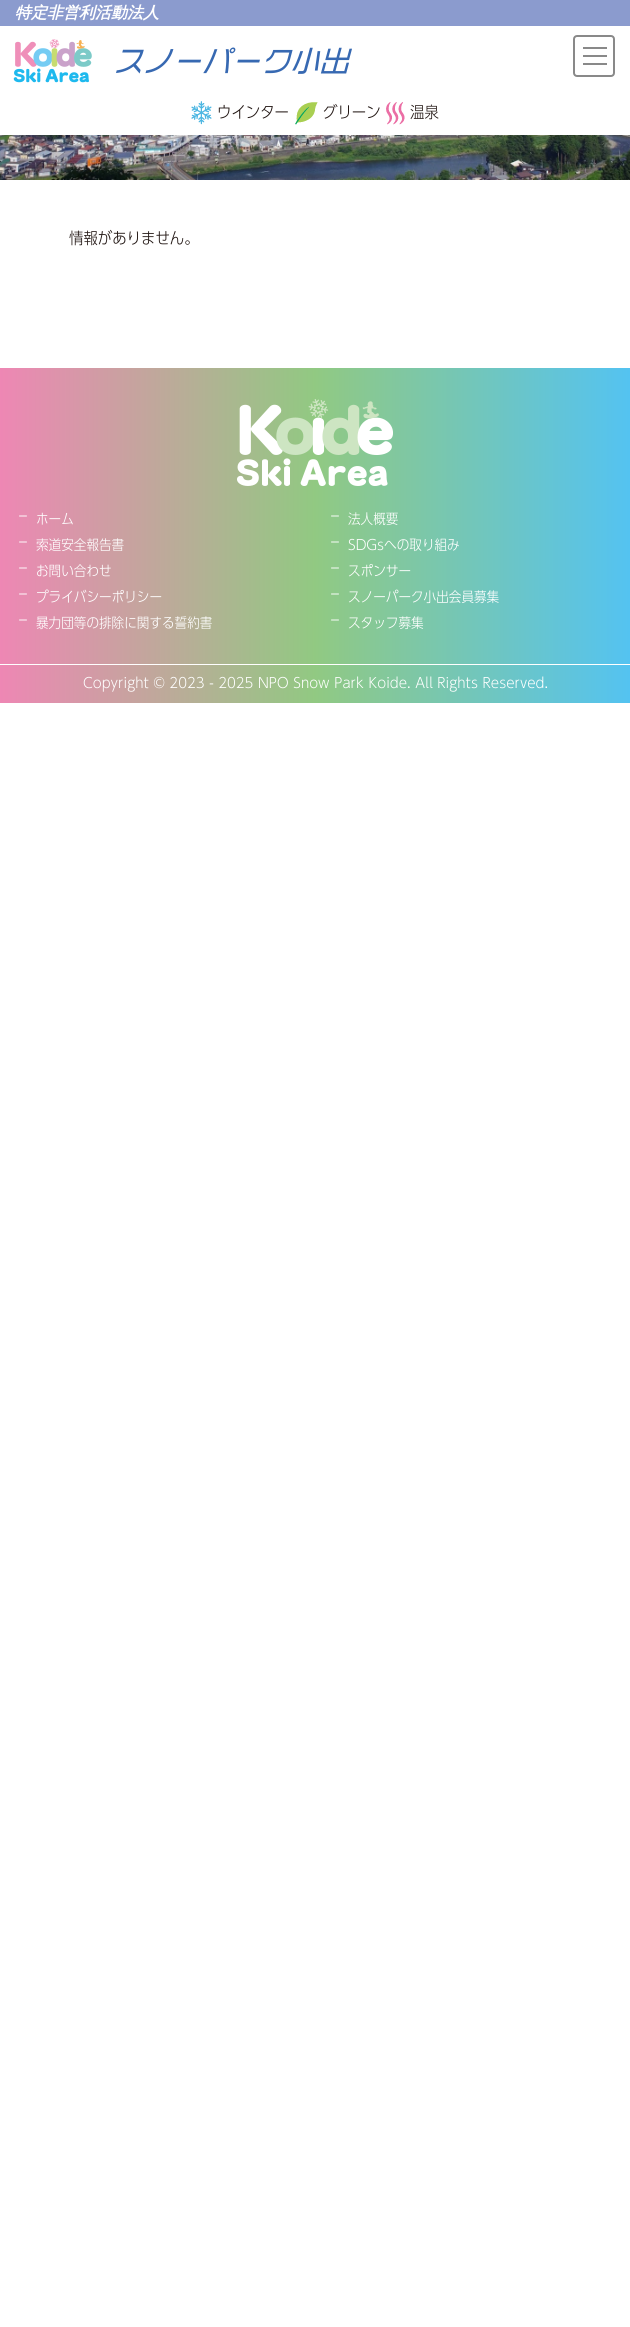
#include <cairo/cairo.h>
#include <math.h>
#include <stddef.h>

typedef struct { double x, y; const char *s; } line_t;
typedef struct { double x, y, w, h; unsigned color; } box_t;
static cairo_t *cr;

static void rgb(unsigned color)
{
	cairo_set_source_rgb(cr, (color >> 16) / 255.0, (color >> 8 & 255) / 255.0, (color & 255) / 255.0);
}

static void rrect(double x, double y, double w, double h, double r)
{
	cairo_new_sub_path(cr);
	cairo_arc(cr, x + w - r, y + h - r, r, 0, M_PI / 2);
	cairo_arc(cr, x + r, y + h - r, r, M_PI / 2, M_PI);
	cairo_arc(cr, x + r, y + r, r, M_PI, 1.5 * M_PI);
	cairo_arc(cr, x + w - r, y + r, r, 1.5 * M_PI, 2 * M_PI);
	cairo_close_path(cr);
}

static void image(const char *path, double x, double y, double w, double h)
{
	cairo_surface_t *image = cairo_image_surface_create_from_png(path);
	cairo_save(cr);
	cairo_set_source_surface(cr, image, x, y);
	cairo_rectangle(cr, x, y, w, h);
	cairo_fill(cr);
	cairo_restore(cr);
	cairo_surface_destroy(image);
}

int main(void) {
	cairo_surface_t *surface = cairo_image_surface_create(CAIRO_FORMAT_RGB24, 630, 2327);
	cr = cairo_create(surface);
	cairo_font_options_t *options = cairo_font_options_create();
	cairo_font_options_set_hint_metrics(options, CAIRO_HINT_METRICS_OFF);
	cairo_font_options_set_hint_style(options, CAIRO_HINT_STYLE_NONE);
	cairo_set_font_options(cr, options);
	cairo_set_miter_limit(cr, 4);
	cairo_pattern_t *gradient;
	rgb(0xffffff);
	cairo_paint(cr);
	rgb(0x8b9bce);
	cairo_rectangle(cr, 0, 0, 630, 26);
	cairo_fill(cr);
	image("img/1.png", 13, 39, 339, 44);
	image("img/2.png", 191, 101, 21, 24);
	image("img/3.png", 295, 102, 23, 23);
	image("img/4.png", 386, 102, 19, 23);
	rrect(574, 36, 40, 40, 3);
	rgb(0x898989);
	cairo_stroke(cr);
	{
		static const box_t items[] = {
			{583, 47, 24, 2, 0x898989},
			{583, 55, 24, 2, 0x898989},
			{583, 63, 24, 2, 0x898989},
		};
		for (size_t i = 0; i < sizeof items / sizeof *items; i++) {
			rgb(items[i].color);
			cairo_rectangle(cr, items[i].x, items[i].y, items[i].w, items[i].h);
			cairo_fill(cr);
		}
	}
	image("img/5.png", 0, 135, 630, 45);
	gradient = cairo_pattern_create_linear(0, 536, 630, 536);
	cairo_pattern_add_color_stop_rgba(gradient, 0, 0.933, 0.529, 0.706, 1);
	cairo_pattern_add_color_stop_rgba(gradient, 0.5, 0.569, 0.788, 0.51, 1);
	cairo_pattern_add_color_stop_rgba(gradient, 1, 0.329, 0.765, 0.945, 1);
	cairo_set_source(cr, gradient);
	cairo_pattern_destroy(gradient);
	cairo_rectangle(cr, 0, 368, 630, 335);
	cairo_fill(cr);
	image("img/6.png", 237, 399, 156, 87);
	image("img/7.png", 19, 515, 8, 2);
	image("img/7.png", 19, 541, 8, 2);
	image("img/7.png", 19, 567, 8, 2);
	image("img/7.png", 19, 593, 8, 2);
	image("img/7.png", 19, 619, 8, 2);
	image("img/8.png", 331, 515, 8, 2);
	image("img/8.png", 331, 541, 8, 2);
	image("img/8.png", 331, 567, 8, 2);
	image("img/8.png", 331, 593, 8, 2);
	image("img/8.png", 331, 619, 8, 2);
	rgb(0xffffff);
	cairo_rectangle(cr, 0, 664, 630, 1);
	cairo_fill(cr);
	cairo_select_font_face(cr, "WenQuanYi Zen Hei", CAIRO_FONT_SLANT_ITALIC, CAIRO_FONT_WEIGHT_BOLD);
	cairo_set_font_size(cr, 16);
	cairo_move_to(cr, 15, 18);
	cairo_show_text(cr, "特定非営利活動法人");
	cairo_select_font_face(cr, "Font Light", CAIRO_FONT_SLANT_NORMAL, CAIRO_FONT_WEIGHT_NORMAL);
	rgb(0x231815);
	{
		static const line_t items[] = {
			{217, 118, "ウインター"},
			{323, 118, "グリーン"},
			{410, 118, "温泉"},
			{69, 244, "情報がありません。"},
		};
		for (size_t i = 0; i < sizeof items / sizeof *items; i++) {
			cairo_move_to(cr, items[i].x, items[i].y);
			cairo_show_text(cr, items[i].s);
		}
	}
	cairo_set_font_size(cr, 14);
	rgb(0xffffff);
	{
		static const line_t items[] = {
			{36, 524, "ホーム"},
			{36, 550, "索道安全報告書"},
			{36, 576, "お問い合わせ"},
			{36, 602, "プライバシーポリシー"},
			{36, 628, "暴力団等の排除に関する誓約書"},
			{348, 524, "法人概要"},
			{348, 550, "SDGsへの取り組み"},
			{348, 576, "スポンサー"},
			{348, 602, "スノーパーク小出会員募集"},
			{348, 628, "スタッフ募集"},
			{83, 688, "Copyright © 2023 - 2025 NPO Snow Park Koide. All Rights Reserved."},
		};
		for (size_t i = 0; i < sizeof items / sizeof *items; i++) {
			cairo_move_to(cr, items[i].x, items[i].y);
			cairo_show_text(cr, items[i].s);
		}
	}
	cairo_surface_write_to_png(surface, "page.png");
	cairo_font_options_destroy(options);
	cairo_destroy(cr);
	cairo_surface_destroy(surface);
	return 0;
}
